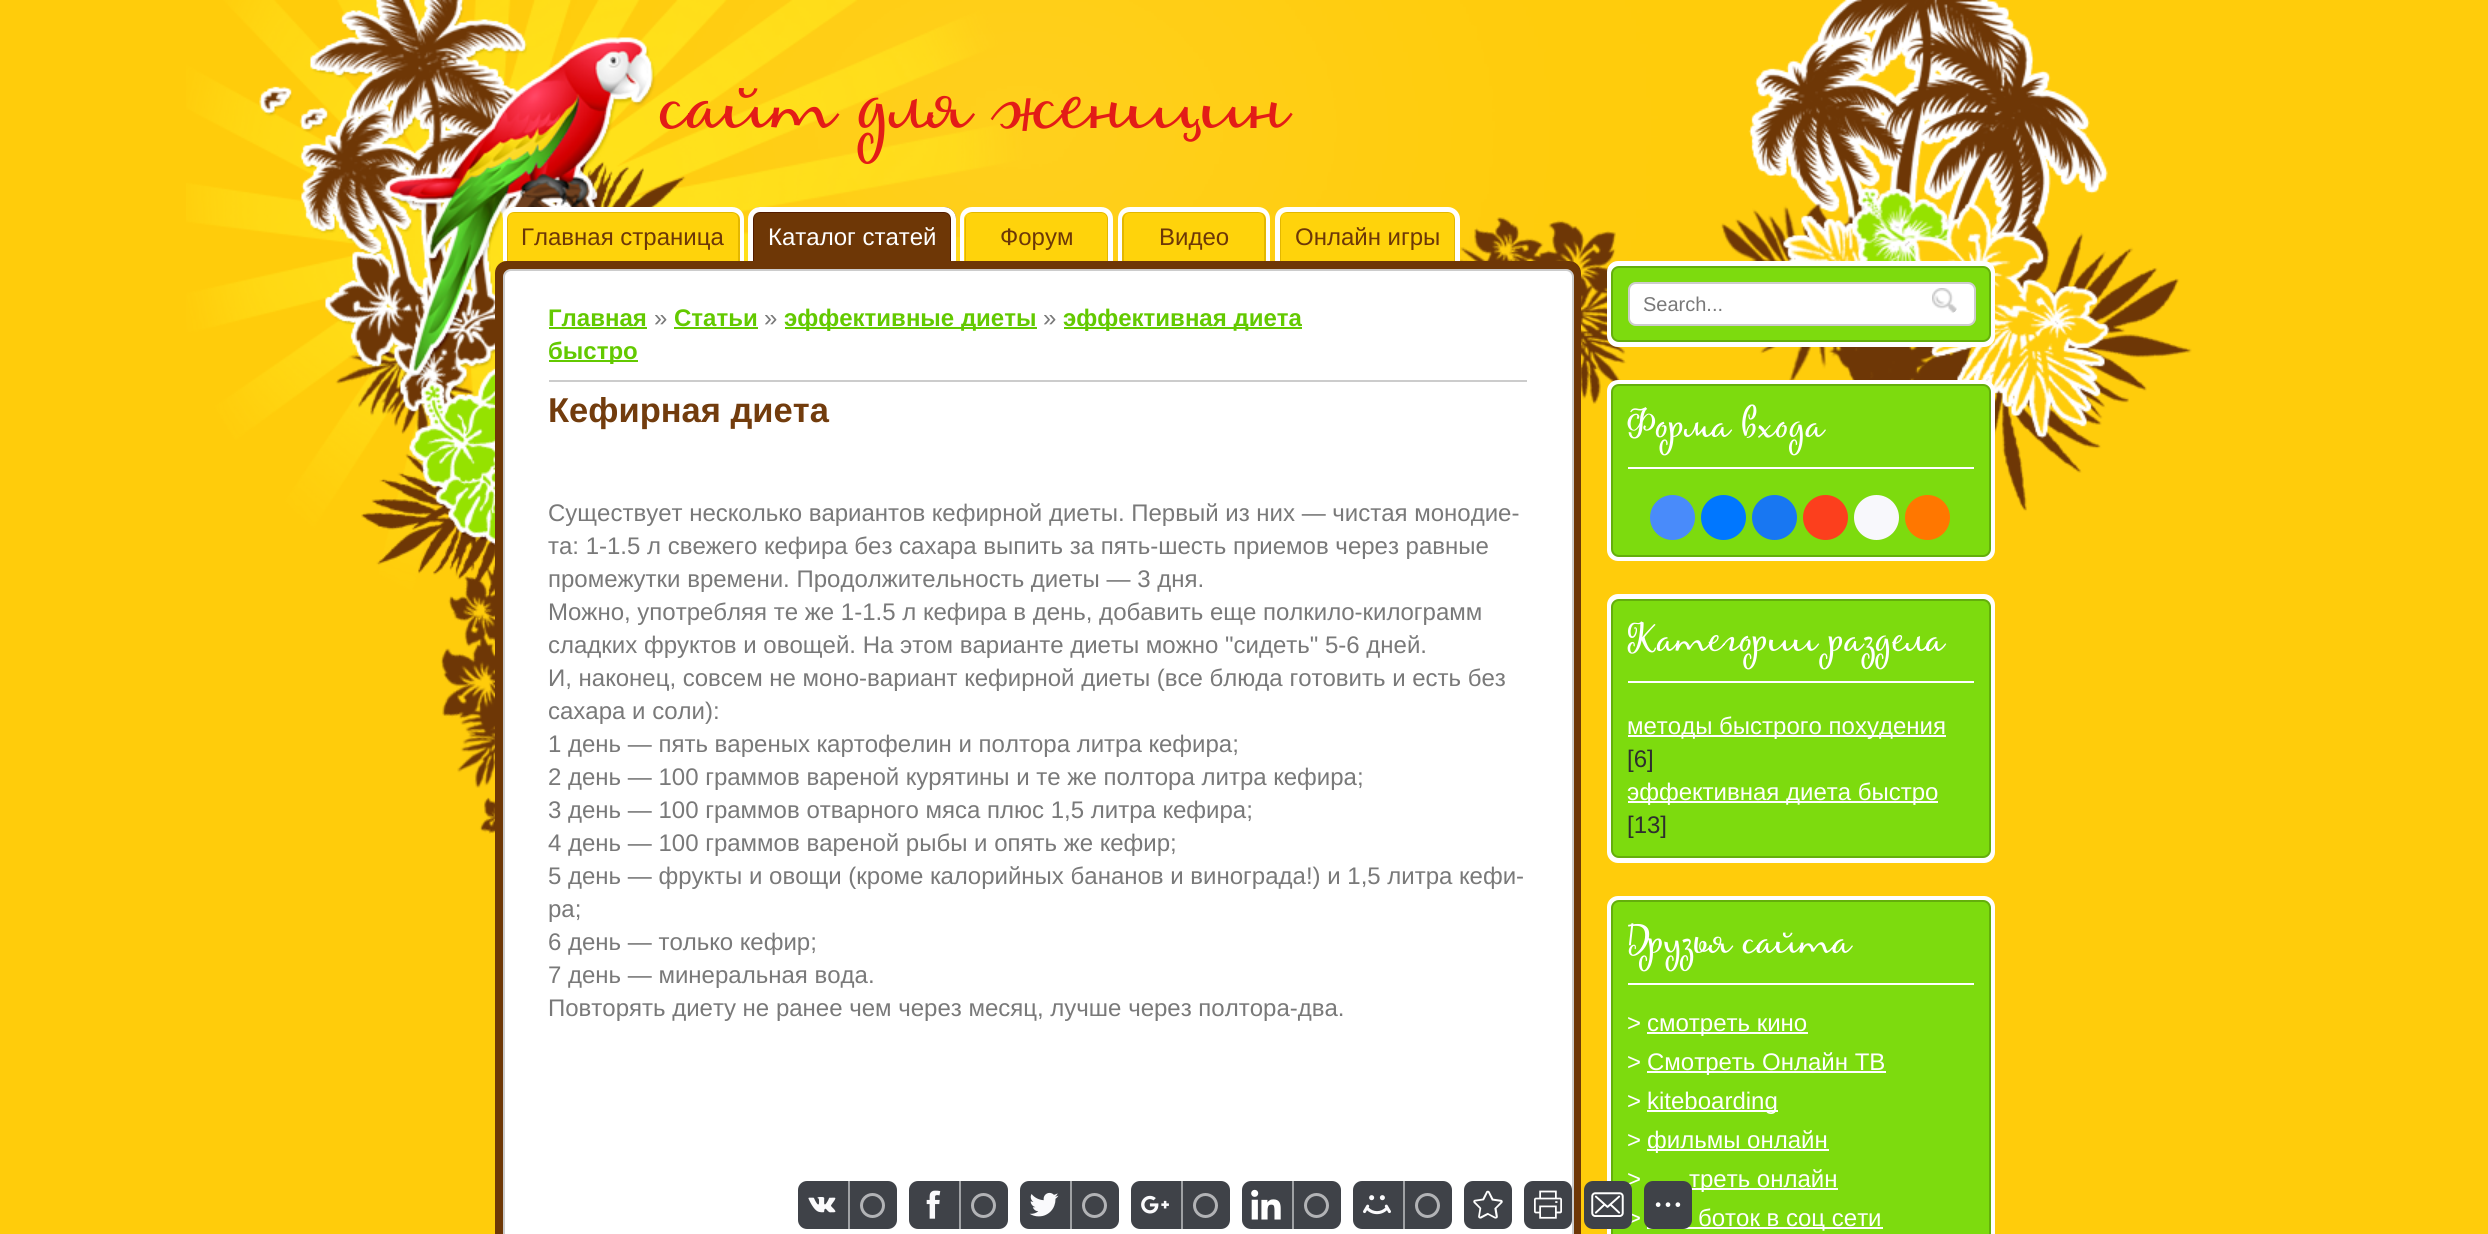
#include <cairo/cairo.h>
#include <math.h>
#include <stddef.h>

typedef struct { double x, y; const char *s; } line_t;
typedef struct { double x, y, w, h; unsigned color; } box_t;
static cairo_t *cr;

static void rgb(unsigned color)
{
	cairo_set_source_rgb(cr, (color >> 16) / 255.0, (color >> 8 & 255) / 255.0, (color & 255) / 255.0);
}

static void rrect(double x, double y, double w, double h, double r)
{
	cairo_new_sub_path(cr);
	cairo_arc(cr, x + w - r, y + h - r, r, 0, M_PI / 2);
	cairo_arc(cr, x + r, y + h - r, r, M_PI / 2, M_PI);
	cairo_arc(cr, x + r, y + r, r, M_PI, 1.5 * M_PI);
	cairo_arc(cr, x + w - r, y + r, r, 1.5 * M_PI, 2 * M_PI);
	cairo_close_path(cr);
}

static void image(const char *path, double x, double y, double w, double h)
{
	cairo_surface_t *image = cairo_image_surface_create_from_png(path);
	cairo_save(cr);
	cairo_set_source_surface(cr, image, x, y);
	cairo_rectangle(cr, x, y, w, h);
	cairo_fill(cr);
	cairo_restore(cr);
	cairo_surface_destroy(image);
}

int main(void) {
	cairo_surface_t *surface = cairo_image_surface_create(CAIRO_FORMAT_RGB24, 2488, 1234);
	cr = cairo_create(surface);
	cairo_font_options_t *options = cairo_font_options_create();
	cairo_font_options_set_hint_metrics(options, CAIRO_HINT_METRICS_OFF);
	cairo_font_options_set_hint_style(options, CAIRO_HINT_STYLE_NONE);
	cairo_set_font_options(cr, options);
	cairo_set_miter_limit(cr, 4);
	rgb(0xffcc0b);
	cairo_paint(cr);
	image("img/1.png", 186, 0, 2006, 834);
	rgb(0xffd30b);
	cairo_new_path(cr);
	cairo_move_to(cr, 515, 207);
	cairo_line_to(cr, 732, 207);
	cairo_curve_to(cr, 738.5, 207, 744, 212.5, 744, 219);
	cairo_line_to(cr, 744, 261);
	cairo_line_to(cr, 503, 261);
	cairo_line_to(cr, 503, 219);
	cairo_curve_to(cr, 503, 212.5, 508.5, 207, 515, 207);
	cairo_close_path(cr);
	cairo_fill(cr);
	rgb(0xe3b700);
	cairo_new_path(cr);
	cairo_move_to(cr, 738, 261);
	cairo_line_to(cr, 740, 261);
	cairo_line_to(cr, 740, 234);
	cairo_curve_to(cr, 740, 224, 743, 212, 730, 212);
	cairo_curve_to(cr, 735, 212, 738, 215, 738, 219);
	cairo_close_path(cr);
	cairo_fill(cr);
	cairo_new_path(cr);
	cairo_move_to(cr, 515, 212);
	cairo_curve_to(cr, 511, 212, 507, 216, 507, 220);
	cairo_line_to(cr, 507, 261);
	cairo_line_to(cr, 508, 261);
	cairo_line_to(cr, 508, 219);
	cairo_curve_to(cr, 508, 215, 512, 212, 516, 212);
	cairo_close_path(cr);
	cairo_fill(cr);
	cairo_new_path(cr);
	cairo_move_to(cr, 514, 213);
	cairo_line_to(cr, 732, 213);
	cairo_curve_to(cr, 736, 213, 740, 216, 740, 220);
	cairo_curve_to(cr, 740, 216, 736, 212, 732, 212);
	cairo_line_to(cr, 515, 212);
	cairo_curve_to(cr, 511, 212, 507, 216, 507, 220);
	cairo_curve_to(cr, 507, 216, 510, 213, 514, 213);
	cairo_close_path(cr);
	cairo_fill(cr);
	cairo_save(cr);
	cairo_rectangle(cr, 503, 207, 1080, 54);
	cairo_clip(cr);
	rgb(0xffffff);
	cairo_set_fill_rule(cr, CAIRO_FILL_RULE_EVEN_ODD);
	cairo_new_path(cr);
	cairo_move_to(cr, 514, 207);
	cairo_line_to(cr, 732, 207);
	cairo_curve_to(cr, 739, 207, 744, 212, 744, 219);
	cairo_line_to(cr, 744, 261);
	cairo_line_to(cr, 502, 261);
	cairo_line_to(cr, 502, 219);
	cairo_curve_to(cr, 502, 212, 508, 207, 514, 207);
	cairo_close_path(cr);
	cairo_move_to(cr, 514, 212);
	cairo_line_to(cr, 732, 212);
	cairo_curve_to(cr, 736, 212, 740, 215, 740, 219);
	cairo_line_to(cr, 740, 261);
	cairo_line_to(cr, 507, 261);
	cairo_line_to(cr, 507, 219);
	cairo_curve_to(cr, 507, 215, 510, 212, 514, 212);
	cairo_close_path(cr);
	cairo_fill(cr);
	cairo_restore(cr);
	rgb(0x6e3706);
	cairo_new_path(cr);
	cairo_move_to(cr, 761, 207);
	cairo_line_to(cr, 944, 207);
	cairo_curve_to(cr, 950.5, 207, 956, 212.5, 956, 219);
	cairo_line_to(cr, 956, 261);
	cairo_line_to(cr, 749, 261);
	cairo_line_to(cr, 749, 219);
	cairo_curve_to(cr, 749, 212.5, 754.5, 207, 761, 207);
	cairo_close_path(cr);
	cairo_fill(cr);
	rgb(0x521b00);
	cairo_new_path(cr);
	cairo_move_to(cr, 950, 261);
	cairo_line_to(cr, 951, 261);
	cairo_line_to(cr, 951, 234);
	cairo_curve_to(cr, 951, 225, 954, 212, 942, 212);
	cairo_curve_to(cr, 946, 212, 950, 215, 950, 219);
	cairo_close_path(cr);
	cairo_fill(cr);
	cairo_new_path(cr);
	cairo_move_to(cr, 761, 212);
	cairo_curve_to(cr, 757, 212, 753, 216, 753, 220);
	cairo_line_to(cr, 753, 261);
	cairo_line_to(cr, 754, 261);
	cairo_line_to(cr, 754, 219);
	cairo_curve_to(cr, 754, 215, 758, 212, 762, 212);
	cairo_close_path(cr);
	cairo_fill(cr);
	cairo_new_path(cr);
	cairo_move_to(cr, 760, 213);
	cairo_line_to(cr, 944, 213);
	cairo_curve_to(cr, 948, 213, 951, 216, 951, 220);
	cairo_curve_to(cr, 951, 216, 947, 212, 943, 212);
	cairo_line_to(cr, 761, 212);
	cairo_curve_to(cr, 757, 212, 753, 216, 753, 220);
	cairo_curve_to(cr, 753, 216, 756, 213, 760, 213);
	cairo_close_path(cr);
	cairo_fill(cr);
	rgb(0xffffff);
	cairo_set_fill_rule(cr, CAIRO_FILL_RULE_EVEN_ODD);
	cairo_new_path(cr);
	cairo_move_to(cr, 760, 207);
	cairo_line_to(cr, 944, 207);
	cairo_curve_to(cr, 950, 207, 956, 212, 956, 219);
	cairo_line_to(cr, 956, 261);
	cairo_line_to(cr, 748, 261);
	cairo_line_to(cr, 748, 219);
	cairo_curve_to(cr, 748, 212, 754, 207, 760, 207);
	cairo_close_path(cr);
	cairo_move_to(cr, 760, 212);
	cairo_line_to(cr, 944, 212);
	cairo_curve_to(cr, 948, 212, 951, 215, 951, 219);
	cairo_line_to(cr, 951, 261);
	cairo_line_to(cr, 753, 261);
	cairo_line_to(cr, 753, 219);
	cairo_curve_to(cr, 753, 215, 756, 212, 760, 212);
	cairo_close_path(cr);
	cairo_fill(cr);
	rgb(0xffd30b);
	cairo_new_path(cr);
	cairo_move_to(cr, 972, 207);
	cairo_line_to(cr, 1101, 207);
	cairo_curve_to(cr, 1107.5, 207, 1113, 212.5, 1113, 219);
	cairo_line_to(cr, 1113, 261);
	cairo_line_to(cr, 960, 261);
	cairo_line_to(cr, 960, 219);
	cairo_curve_to(cr, 960, 212.5, 965.5, 207, 972, 207);
	cairo_close_path(cr);
	cairo_fill(cr);
	rgb(0xe3b700);
	cairo_set_fill_rule(cr, CAIRO_FILL_RULE_WINDING);
	cairo_new_path(cr);
	cairo_move_to(cr, 1107, 261);
	cairo_line_to(cr, 1109, 261);
	cairo_line_to(cr, 1109, 234);
	cairo_curve_to(cr, 1109, 225, 1112, 212, 1100, 212);
	cairo_curve_to(cr, 1104, 212, 1107, 215, 1107, 219);
	cairo_close_path(cr);
	cairo_fill(cr);
	cairo_new_path(cr);
	cairo_move_to(cr, 973, 212);
	cairo_curve_to(cr, 969, 212, 965, 216, 965, 220);
	cairo_line_to(cr, 965, 261);
	cairo_line_to(cr, 966, 261);
	cairo_line_to(cr, 966, 219);
	cairo_curve_to(cr, 966, 215, 969, 212, 974, 212);
	cairo_close_path(cr);
	cairo_fill(cr);
	cairo_new_path(cr);
	cairo_move_to(cr, 972, 213);
	cairo_line_to(cr, 1101, 213);
	cairo_curve_to(cr, 1105, 213, 1108, 216, 1108, 220);
	cairo_line_to(cr, 1108, 261);
	cairo_line_to(cr, 1109, 261);
	cairo_line_to(cr, 1109, 220);
	cairo_curve_to(cr, 1109, 216, 1105, 212, 1101, 212);
	cairo_line_to(cr, 973, 212);
	cairo_curve_to(cr, 971, 212, 969, 213, 967, 214);
	cairo_curve_to(cr, 969, 214, 970, 213, 972, 213);
	cairo_close_path(cr);
	cairo_fill(cr);
	rgb(0xffffff);
	cairo_set_fill_rule(cr, CAIRO_FILL_RULE_EVEN_ODD);
	cairo_new_path(cr);
	cairo_move_to(cr, 972, 207);
	cairo_line_to(cr, 1101, 207);
	cairo_curve_to(cr, 1108, 207, 1113, 212, 1113, 219);
	cairo_line_to(cr, 1113, 261);
	cairo_line_to(cr, 960, 261);
	cairo_line_to(cr, 960, 219);
	cairo_curve_to(cr, 960, 212, 965, 207, 972, 207);
	cairo_close_path(cr);
	cairo_move_to(cr, 972, 212);
	cairo_line_to(cr, 1101, 212);
	cairo_curve_to(cr, 1105, 212, 1108, 215, 1108, 219);
	cairo_line_to(cr, 1108, 261);
	cairo_line_to(cr, 964, 261);
	cairo_line_to(cr, 964, 219);
	cairo_curve_to(cr, 964, 215, 968, 212, 972, 212);
	cairo_close_path(cr);
	cairo_fill(cr);
	rgb(0xffd30b);
	cairo_new_path(cr);
	cairo_move_to(cr, 1130, 207);
	cairo_line_to(cr, 1259, 207);
	cairo_curve_to(cr, 1265.5, 207, 1271, 212.5, 1271, 219);
	cairo_line_to(cr, 1271, 261);
	cairo_line_to(cr, 1118, 261);
	cairo_line_to(cr, 1118, 219);
	cairo_curve_to(cr, 1118, 212.5, 1123.5, 207, 1130, 207);
	cairo_close_path(cr);
	cairo_fill(cr);
	rgb(0xe3b700);
	cairo_set_fill_rule(cr, CAIRO_FILL_RULE_WINDING);
	cairo_new_path(cr);
	cairo_move_to(cr, 1264, 261);
	cairo_line_to(cr, 1266, 261);
	cairo_line_to(cr, 1266, 234);
	cairo_curve_to(cr, 1266, 225, 1269, 212, 1257, 212);
	cairo_curve_to(cr, 1261, 212, 1264, 215, 1264, 219);
	cairo_close_path(cr);
	cairo_fill(cr);
	cairo_new_path(cr);
	cairo_move_to(cr, 1130, 212);
	cairo_curve_to(cr, 1126, 212, 1122, 216, 1122, 220);
	cairo_line_to(cr, 1122, 261);
	cairo_line_to(cr, 1124, 261);
	cairo_line_to(cr, 1124, 219);
	cairo_curve_to(cr, 1124, 215, 1127, 212, 1131, 212);
	cairo_close_path(cr);
	cairo_fill(cr);
	cairo_new_path(cr);
	cairo_move_to(cr, 1130, 213);
	cairo_line_to(cr, 1258, 213);
	cairo_curve_to(cr, 1263, 213, 1266, 216, 1266, 220);
	cairo_curve_to(cr, 1266, 216, 1262, 212, 1258, 212);
	cairo_line_to(cr, 1130, 212);
	cairo_curve_to(cr, 1126, 212, 1122, 216, 1122, 220);
	cairo_curve_to(cr, 1122, 216, 1125, 213, 1130, 213);
	cairo_close_path(cr);
	cairo_fill(cr);
	rgb(0xffffff);
	cairo_set_fill_rule(cr, CAIRO_FILL_RULE_EVEN_ODD);
	cairo_new_path(cr);
	cairo_move_to(cr, 1130, 207);
	cairo_line_to(cr, 1258, 207);
	cairo_curve_to(cr, 1265, 207, 1270, 212, 1270, 219);
	cairo_line_to(cr, 1270, 261);
	cairo_line_to(cr, 1118, 261);
	cairo_line_to(cr, 1118, 219);
	cairo_curve_to(cr, 1118, 212, 1123, 207, 1130, 207);
	cairo_close_path(cr);
	cairo_move_to(cr, 1130, 212);
	cairo_line_to(cr, 1258, 212);
	cairo_curve_to(cr, 1263, 212, 1266, 215, 1266, 219);
	cairo_line_to(cr, 1266, 261);
	cairo_line_to(cr, 1122, 261);
	cairo_line_to(cr, 1122, 219);
	cairo_curve_to(cr, 1122, 215, 1125, 212, 1130, 212);
	cairo_close_path(cr);
	cairo_fill(cr);
	rgb(0xffd30b);
	cairo_new_path(cr);
	cairo_move_to(cr, 1287, 207);
	cairo_line_to(cr, 1448, 207);
	cairo_curve_to(cr, 1454.5, 207, 1460, 212.5, 1460, 219);
	cairo_line_to(cr, 1460, 261);
	cairo_line_to(cr, 1275, 261);
	cairo_line_to(cr, 1275, 219);
	cairo_curve_to(cr, 1275, 212.5, 1280.5, 207, 1287, 207);
	cairo_close_path(cr);
	cairo_fill(cr);
	rgb(0xe3b700);
	cairo_set_fill_rule(cr, CAIRO_FILL_RULE_WINDING);
	cairo_new_path(cr);
	cairo_move_to(cr, 1454, 261);
	cairo_line_to(cr, 1455, 261);
	cairo_line_to(cr, 1455, 234);
	cairo_curve_to(cr, 1455, 225, 1458, 212, 1446, 212);
	cairo_curve_to(cr, 1450, 212, 1454, 215, 1454, 219);
	cairo_close_path(cr);
	cairo_fill(cr);
	cairo_new_path(cr);
	cairo_move_to(cr, 1288, 212);
	cairo_curve_to(cr, 1284, 212, 1280, 216, 1280, 220);
	cairo_line_to(cr, 1280, 261);
	cairo_line_to(cr, 1281, 261);
	cairo_line_to(cr, 1281, 219);
	cairo_curve_to(cr, 1281, 215, 1284, 212, 1288, 212);
	cairo_close_path(cr);
	cairo_fill(cr);
	cairo_new_path(cr);
	cairo_move_to(cr, 1287, 213);
	cairo_line_to(cr, 1448, 213);
	cairo_curve_to(cr, 1452, 213, 1455, 216, 1455, 220);
	cairo_curve_to(cr, 1455, 216, 1451, 212, 1447, 212);
	cairo_line_to(cr, 1288, 212);
	cairo_curve_to(cr, 1284, 212, 1280, 216, 1280, 220);
	cairo_curve_to(cr, 1280, 216, 1283, 213, 1287, 213);
	cairo_close_path(cr);
	cairo_fill(cr);
	rgb(0xffffff);
	cairo_set_fill_rule(cr, CAIRO_FILL_RULE_EVEN_ODD);
	cairo_new_path(cr);
	cairo_move_to(cr, 1287, 207);
	cairo_line_to(cr, 1448, 207);
	cairo_curve_to(cr, 1454, 207, 1460, 212, 1460, 219);
	cairo_line_to(cr, 1460, 261);
	cairo_line_to(cr, 1275, 261);
	cairo_line_to(cr, 1275, 219);
	cairo_curve_to(cr, 1275, 212, 1280, 207, 1287, 207);
	cairo_close_path(cr);
	cairo_move_to(cr, 1287, 212);
	cairo_line_to(cr, 1448, 212);
	cairo_curve_to(cr, 1452, 212, 1455, 215, 1455, 219);
	cairo_line_to(cr, 1455, 261);
	cairo_line_to(cr, 1280, 261);
	cairo_line_to(cr, 1280, 219);
	cairo_curve_to(cr, 1280, 215, 1283, 212, 1287, 212);
	cairo_close_path(cr);
	cairo_fill(cr);
	rgb(0x6e3706);
	rrect(495, 261, 1086, 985, 12);
	cairo_fill(cr);
	rgb(0xffffff);
	rrect(503, 269, 1071, 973, 8);
	cairo_fill(cr);
	rrect(504, 270, 1069, 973, 7);
	cairo_set_source_rgba(cr, 0, 0, 0, 0.2);
	cairo_stroke(cr);
	{
		static const box_t items[] = {
			{549, 327, 98, 2, 0x63c900},
			{674, 327, 84, 2, 0x63c900},
			{785, 327, 252, 2, 0x63c900},
			{1064, 327, 238, 2, 0x63c900},
			{549, 360, 89, 2, 0x63c900},
			{549, 380, 978, 2, 0xcccccc},
		};
		for (size_t i = 0; i < sizeof items / sizeof *items; i++) {
			rgb(items[i].color);
			cairo_rectangle(cr, items[i].x, items[i].y, items[i].w, items[i].h);
			cairo_fill(cr);
		}
	}
	rgb(0xffffff);
	rrect(1607, 261, 388, 86, 11);
	cairo_fill(cr);
	rgb(0x7ddb0e);
	rrect(1611, 266, 380, 76, 8);
	cairo_fill(cr);
	rrect(1612, 267, 378, 74, 7);
	cairo_set_source_rgba(cr, 0, 0, 0, 0.2);
	cairo_stroke(cr);
	rgb(0xffffff);
	rrect(1628, 282, 348, 44, 8);
	cairo_fill(cr);
	rrect(1629, 283, 346, 42, 7);
	cairo_set_source_rgba(cr, 0, 0, 0, 0.2);
	cairo_stroke(cr);
	image("img/2.png", 1932, 288, 25, 25);
	rgb(0xffffff);
	rrect(1607, 380, 388, 181, 11);
	cairo_fill(cr);
	rgb(0x7ddb0e);
	rrect(1611, 384, 380, 173, 8);
	cairo_fill(cr);
	rrect(1612, 385, 378, 171, 7);
	cairo_set_source_rgba(cr, 0, 0, 0, 0.2);
	cairo_stroke(cr);
	rgb(0xffffff);
	cairo_rectangle(cr, 1628, 467, 346, 2);
	cairo_fill(cr);
	rgb(0x498bfa);
	cairo_arc(cr, 1672.5, 517.5, 22.5, 0, 2 * M_PI);
	cairo_fill(cr);
	rgb(0x0077ff);
	cairo_arc(cr, 1723.5, 517.5, 22.5, 0, 2 * M_PI);
	cairo_fill(cr);
	rgb(0x1877f2);
	cairo_arc(cr, 1774.5, 517.5, 22.5, 0, 2 * M_PI);
	cairo_fill(cr);
	rgb(0xfc3f1d);
	cairo_arc(cr, 1825.5, 517.5, 22.5, 0, 2 * M_PI);
	cairo_fill(cr);
	rgb(0xf8f8fc);
	cairo_arc(cr, 1876.5, 517.5, 22.5, 0, 2 * M_PI);
	cairo_fill(cr);
	rgb(0xff7700);
	cairo_arc(cr, 1927.5, 517.5, 22.5, 0, 2 * M_PI);
	cairo_fill(cr);
	rgb(0xffffff);
	rrect(1607, 594, 388, 269, 11);
	cairo_fill(cr);
	rgb(0x7ddb0e);
	rrect(1611, 599, 380, 259, 8);
	cairo_fill(cr);
	rrect(1612, 600, 378, 257, 7);
	cairo_set_source_rgba(cr, 0, 0, 0, 0.2);
	cairo_stroke(cr);
	{
		static const box_t items[] = {
			{1628, 681, 346, 2, 0xffffff},
			{1628, 735, 318, 2, 0xffffff},
			{1628, 801, 310, 2, 0xffffff},
		};
		for (size_t i = 0; i < sizeof items / sizeof *items; i++) {
			rgb(items[i].color);
			cairo_rectangle(cr, items[i].x, items[i].y, items[i].w, items[i].h);
			cairo_fill(cr);
		}
	}
	rrect(1607, 896, 388, 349, 11);
	cairo_fill(cr);
	rgb(0x7ddb0e);
	rrect(1611, 900, 380, 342, 8);
	cairo_fill(cr);
	rrect(1612, 901, 378, 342, 7);
	cairo_set_source_rgba(cr, 0, 0, 0, 0.2);
	cairo_stroke(cr);
	{
		static const box_t items[] = {
			{1628, 983, 346, 2, 0xffffff},
			{1647, 1032, 161, 2, 0xffffff},
			{1647, 1071, 239, 2, 0xffffff},
			{1647, 1110, 131, 2, 0xffffff},
			{1647, 1149, 182, 2, 0xffffff},
			{1691, 1188, 147, 2, 0xffffff},
			{1647, 1227, 236, 2, 0xffffff},
		};
		for (size_t i = 0; i < sizeof items / sizeof *items; i++) {
			rgb(items[i].color);
			cairo_rectangle(cr, items[i].x, items[i].y, items[i].w, items[i].h);
			cairo_fill(cr);
		}
	}
	rgb(0x3f4248);
	rrect(798, 1181, 99, 48, 9);
	cairo_fill(cr);
	image("img/3.png", 808, 1197, 28, 16);
	rgb(0x9fa1a4);
	cairo_rectangle(cr, 848, 1181, 2, 48);
	cairo_fill(cr);
	cairo_arc(cr, 872.5, 1205.5, 11, 0, 2 * M_PI);
	rgb(0xb2b3b6);
	cairo_set_line_width(cr, 3);
	cairo_stroke(cr);
	rgb(0x3f4248);
	rrect(909, 1181, 99, 48, 9);
	cairo_fill(cr);
	image("img/4.png", 926, 1190, 15, 29);
	rgb(0x9fa1a4);
	cairo_rectangle(cr, 959, 1181, 2, 48);
	cairo_fill(cr);
	cairo_arc(cr, 983.5, 1205.5, 11, 0, 2 * M_PI);
	rgb(0xb2b3b6);
	cairo_stroke(cr);
	rgb(0x3f4248);
	rrect(1020, 1181, 99, 48, 9);
	cairo_fill(cr);
	image("img/5.png", 1029, 1192, 30, 25);
	rgb(0x9fa1a4);
	cairo_rectangle(cr, 1070, 1181, 2, 48);
	cairo_fill(cr);
	cairo_arc(cr, 1094.5, 1205.5, 11, 0, 2 * M_PI);
	rgb(0xb2b3b6);
	cairo_stroke(cr);
	rgb(0x3f4248);
	rrect(1131, 1181, 99, 48, 9);
	cairo_fill(cr);
	image("img/6.png", 1141, 1195, 28, 19);
	rgb(0x9fa1a4);
	cairo_rectangle(cr, 1181, 1181, 2, 48);
	cairo_fill(cr);
	cairo_arc(cr, 1205.5, 1205.5, 11, 0, 2 * M_PI);
	rgb(0xb2b3b6);
	cairo_stroke(cr);
	rgb(0x3f4248);
	rrect(1242, 1181, 99, 48, 9);
	cairo_fill(cr);
	image("img/7.png", 1251, 1189, 30, 31);
	rgb(0x9fa1a4);
	cairo_rectangle(cr, 1292, 1181, 2, 48);
	cairo_fill(cr);
	cairo_arc(cr, 1316.5, 1205.5, 11, 0, 2 * M_PI);
	rgb(0xb2b3b6);
	cairo_stroke(cr);
	rgb(0x3f4248);
	rrect(1353, 1181, 99, 48, 9);
	cairo_fill(cr);
	image("img/8.png", 1363, 1195, 28, 20);
	rgb(0x9fa1a4);
	cairo_rectangle(cr, 1403, 1181, 2, 48);
	cairo_fill(cr);
	cairo_arc(cr, 1427.5, 1205.5, 11, 0, 2 * M_PI);
	rgb(0xb2b3b6);
	cairo_stroke(cr);
	rgb(0x3f4248);
	rrect(1464, 1181, 48, 48, 9);
	cairo_fill(cr);
	image("img/9.png", 1473, 1190, 30, 29);
	rrect(1524, 1181, 48, 48, 9);
	cairo_fill(cr);
	image("img/10.png", 1534, 1190, 28, 29);
	cairo_select_font_face(cr, "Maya", CAIRO_FONT_SLANT_NORMAL, CAIRO_FONT_WEIGHT_NORMAL);
	cairo_set_font_size(cr, 70.5);
	rgb(0xe31c17);
	cairo_move_to(cr, 659, 128);
	cairo_show_text(cr, "сайт для женщин");
	cairo_select_font_face(cr, "Liberation Sans", CAIRO_FONT_SLANT_NORMAL, CAIRO_FONT_WEIGHT_NORMAL);
	cairo_set_font_size(cr, 24);
	rgb(0x6c3707);
	cairo_move_to(cr, 521, 245);
	cairo_show_text(cr, "Главная страница");
	rgb(0xffffff);
	cairo_move_to(cr, 768, 245);
	cairo_show_text(cr, "Каталог статей");
	rgb(0x6c3707);
	{
		static const line_t items[] = {
			{1000, 245, "Форум"},
			{1159, 245, "Видео"},
			{1295, 245, "Онлайн игры"},
		};
		for (size_t i = 0; i < sizeof items / sizeof *items; i++) {
			cairo_move_to(cr, items[i].x, items[i].y);
			cairo_show_text(cr, items[i].s);
		}
	}
	cairo_select_font_face(cr, "Liberation Sans", CAIRO_FONT_SLANT_NORMAL, CAIRO_FONT_WEIGHT_BOLD);
	rgb(0x63c900);
	cairo_move_to(cr, 548, 326);
	cairo_show_text(cr, "Главная");
	cairo_select_font_face(cr, "Liberation Sans", CAIRO_FONT_SLANT_NORMAL, CAIRO_FONT_WEIGHT_NORMAL);
	rgb(0x797979);
	cairo_move_to(cr, 654, 326);
	cairo_show_text(cr, "»");
	cairo_select_font_face(cr, "Liberation Sans", CAIRO_FONT_SLANT_NORMAL, CAIRO_FONT_WEIGHT_BOLD);
	rgb(0x63c900);
	cairo_move_to(cr, 674, 326);
	cairo_show_text(cr, "Статьи");
	cairo_select_font_face(cr, "Liberation Sans", CAIRO_FONT_SLANT_NORMAL, CAIRO_FONT_WEIGHT_NORMAL);
	rgb(0x797979);
	cairo_move_to(cr, 764, 326);
	cairo_show_text(cr, "»");
	cairo_select_font_face(cr, "Liberation Sans", CAIRO_FONT_SLANT_NORMAL, CAIRO_FONT_WEIGHT_BOLD);
	rgb(0x63c900);
	cairo_move_to(cr, 784, 326);
	cairo_show_text(cr, "эффективные диеты");
	cairo_select_font_face(cr, "Liberation Sans", CAIRO_FONT_SLANT_NORMAL, CAIRO_FONT_WEIGHT_NORMAL);
	rgb(0x797979);
	cairo_move_to(cr, 1043, 326);
	cairo_show_text(cr, "»");
	cairo_select_font_face(cr, "Liberation Sans", CAIRO_FONT_SLANT_NORMAL, CAIRO_FONT_WEIGHT_BOLD);
	rgb(0x63c900);
	cairo_move_to(cr, 1063, 326);
	cairo_show_text(cr, "эффективная диета");
	cairo_move_to(cr, 548, 359);
	cairo_show_text(cr, "быстро");
	cairo_set_font_size(cr, 34.5);
	rgb(0x723c0d);
	cairo_move_to(cr, 548, 422);
	cairo_show_text(cr, "Кефирная диета");
	cairo_select_font_face(cr, "Liberation Sans", CAIRO_FONT_SLANT_NORMAL, CAIRO_FONT_WEIGHT_NORMAL);
	cairo_set_font_size(cr, 24);
	rgb(0x797979);
	{
		static const line_t items[] = {
			{548, 521, "Существует несколько вариантов кефирной диеты. Первый из них — чистая монодие-"},
			{548, 554, "та: 1-1.5 л свежего кефира без сахара выпить за пять-шесть приемов через равные"},
			{548, 587, "промежутки времени. Продолжительность диеты — 3 дня."},
			{548, 620, "Можно, употребляя те же 1-1.5 л кефира в день, добавить еще полкило-килограмм"},
			{548, 653, "сладких фруктов и овощей. На этом варианте диеты можно \"сидеть\" 5-6 дней."},
			{548, 686, "И, наконец, совсем не моно-вариант кефирной диеты (все блюда готовить и есть без"},
			{548, 719, "сахара и соли):"},
			{548, 752, "1 день — пять вареных картофелин и полтора литра кефира;"},
			{548, 785, "2 день — 100 граммов вареной курятины и те же полтора литра кефира;"},
			{548, 818, "3 день — 100 граммов отварного мяса плюс 1,5 литра кефира;"},
			{548, 851, "4 день — 100 граммов вареной рыбы и опять же кефир;"},
			{548, 884, "5 день — фрукты и овощи (кроме калорийных бананов и винограда!) и 1,5 литра кефи-"},
			{548, 917, "ра;"},
			{548, 950, "6 день — только кефир;"},
			{548, 983, "7 день — минеральная вода."},
			{548, 1016, "Повторять диету не ранее чем через месяц, лучше через полтора-два."},
		};
		for (size_t i = 0; i < sizeof items / sizeof *items; i++) {
			cairo_move_to(cr, items[i].x, items[i].y);
			cairo_show_text(cr, items[i].s);
		}
	}
	cairo_set_font_size(cr, 20);
	cairo_move_to(cr, 1643, 311);
	cairo_show_text(cr, "Search...");
	cairo_select_font_face(cr, "Maya", CAIRO_FONT_SLANT_NORMAL, CAIRO_FONT_WEIGHT_NORMAL);
	cairo_set_font_size(cr, 36);
	rgb(0xffffff);
	cairo_move_to(cr, 1627, 437);
	cairo_show_text(cr, "Форма входа");
	cairo_move_to(cr, 1627, 651);
	cairo_show_text(cr, "Категории раздела");
	cairo_select_font_face(cr, "Liberation Sans", CAIRO_FONT_SLANT_NORMAL, CAIRO_FONT_WEIGHT_NORMAL);
	cairo_set_font_size(cr, 24);
	cairo_move_to(cr, 1627, 734);
	cairo_show_text(cr, "методы быстрого похудения");
	rgb(0x2e2e2e);
	cairo_move_to(cr, 1627, 767);
	cairo_show_text(cr, "[6]");
	rgb(0xffffff);
	cairo_move_to(cr, 1627, 800);
	cairo_show_text(cr, "эффективная диета быстро");
	rgb(0x2e2e2e);
	cairo_move_to(cr, 1627, 833);
	cairo_show_text(cr, "[13]");
	cairo_select_font_face(cr, "Maya", CAIRO_FONT_SLANT_NORMAL, CAIRO_FONT_WEIGHT_NORMAL);
	cairo_set_font_size(cr, 36);
	rgb(0xffffff);
	cairo_move_to(cr, 1627, 953);
	cairo_show_text(cr, "Друзья сайта");
	cairo_select_font_face(cr, "Liberation Sans", CAIRO_FONT_SLANT_NORMAL, CAIRO_FONT_WEIGHT_NORMAL);
	cairo_set_font_size(cr, 24);
	{
		static const line_t items[] = {
			{1627, 1031, ">"},
			{1647, 1031, "смотреть кино"},
			{1627, 1070, ">"},
			{1647, 1070, "Смотреть Онлайн ТВ"},
			{1627, 1109, ">"},
			{1647, 1109, "kiteboarding"},
			{1627, 1148, ">"},
			{1647, 1148, "фильмы онлайн"},
			{1627, 1187, ">"},
			{1689, 1187, "треть онлайн"},
			{1627, 1226, ">"},
			{1698, 1226, "боток в соц сети"},
		};
		for (size_t i = 0; i < sizeof items / sizeof *items; i++) {
			cairo_move_to(cr, items[i].x, items[i].y);
			cairo_show_text(cr, items[i].s);
		}
	}
	rgb(0x3f4248);
	rrect(1584, 1181, 48, 48, 9);
	cairo_fill(cr);
	image("img/11.png", 1591, 1192, 33, 25);
	rrect(1644, 1181, 48, 48, 9);
	cairo_fill(cr);
	image("img/12.png", 1655, 1202, 26, 5);
	cairo_surface_write_to_png(surface, "page.png");
	cairo_font_options_destroy(options);
	cairo_destroy(cr);
	cairo_surface_destroy(surface);
	return 0;
}
